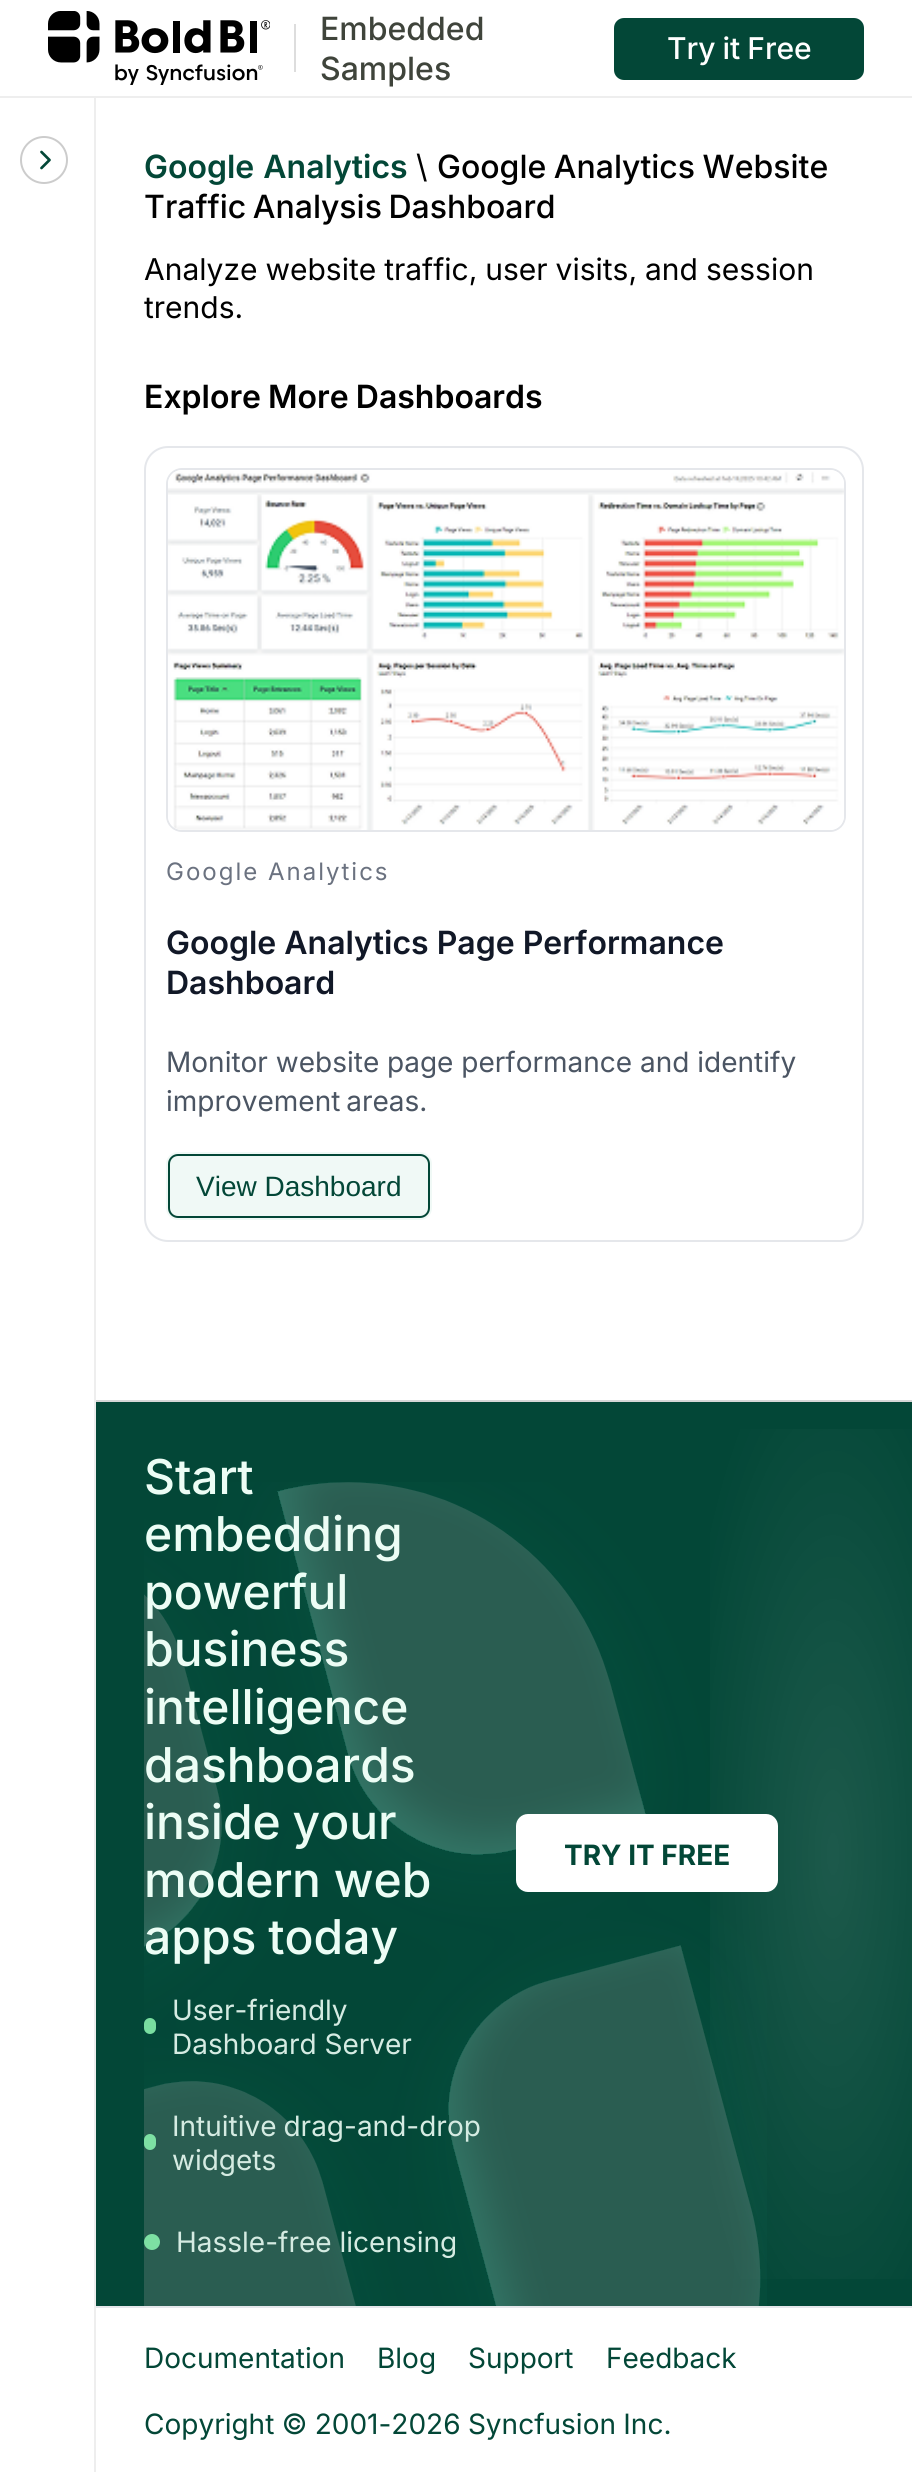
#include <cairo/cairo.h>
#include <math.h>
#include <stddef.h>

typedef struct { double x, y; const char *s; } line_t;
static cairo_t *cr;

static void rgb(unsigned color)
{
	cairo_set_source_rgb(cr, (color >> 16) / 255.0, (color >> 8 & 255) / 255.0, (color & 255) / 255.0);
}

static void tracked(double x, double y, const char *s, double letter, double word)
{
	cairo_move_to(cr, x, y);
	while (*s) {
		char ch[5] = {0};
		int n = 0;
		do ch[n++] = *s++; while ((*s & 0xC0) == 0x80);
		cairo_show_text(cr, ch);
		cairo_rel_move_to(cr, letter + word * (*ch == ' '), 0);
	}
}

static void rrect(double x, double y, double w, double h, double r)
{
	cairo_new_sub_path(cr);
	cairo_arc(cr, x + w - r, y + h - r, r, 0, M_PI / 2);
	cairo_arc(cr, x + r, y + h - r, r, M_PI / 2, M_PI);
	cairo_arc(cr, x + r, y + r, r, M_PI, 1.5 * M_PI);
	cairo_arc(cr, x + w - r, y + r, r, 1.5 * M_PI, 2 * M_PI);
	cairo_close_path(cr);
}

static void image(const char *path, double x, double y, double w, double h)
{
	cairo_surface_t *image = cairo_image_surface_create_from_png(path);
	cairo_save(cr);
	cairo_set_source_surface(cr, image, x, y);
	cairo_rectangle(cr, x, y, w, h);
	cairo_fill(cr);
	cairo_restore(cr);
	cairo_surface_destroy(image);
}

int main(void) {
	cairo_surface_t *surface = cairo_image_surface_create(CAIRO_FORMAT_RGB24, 912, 2472);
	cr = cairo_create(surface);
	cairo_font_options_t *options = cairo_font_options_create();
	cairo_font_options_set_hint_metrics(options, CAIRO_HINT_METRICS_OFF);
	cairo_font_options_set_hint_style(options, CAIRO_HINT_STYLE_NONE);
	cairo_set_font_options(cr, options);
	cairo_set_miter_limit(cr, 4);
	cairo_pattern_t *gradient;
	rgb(0xffffff);
	cairo_paint(cr);
	rgb(0xeeeeee);
	cairo_rectangle(cr, 0, 96, 912, 2);
	cairo_fill(cr);
	image("img/1.png", 48, 11, 222, 74);
	rgb(0xdddddd);
	cairo_rectangle(cr, 294, 24, 2, 48);
	cairo_fill(cr);
	rgb(0x034737);
	rrect(614, 18, 250, 62, 10);
	cairo_fill(cr);
	rgb(0xeeeeee);
	cairo_rectangle(cr, 94, 98, 2, 2374);
	cairo_fill(cr);
	cairo_arc(cr, 44, 160, 23, 0, 2 * M_PI);
	rgb(0xcccccc);
	cairo_stroke(cr);
	cairo_new_path(cr);
	cairo_move_to(cr, 41.5, 152);
	cairo_line_to(cr, 49.5, 160);
	cairo_line_to(cr, 41.5, 168);
	rgb(0x034737);
	cairo_set_line_width(cr, 2.7);
	cairo_set_line_cap(cr, CAIRO_LINE_CAP_ROUND);
	cairo_set_line_join(cr, CAIRO_LINE_JOIN_ROUND);
	cairo_stroke(cr);
	rrect(145, 447, 718, 794, 23);
	rgb(0xe5e7eb);
	cairo_set_line_width(cr, 2);
	cairo_set_line_cap(cr, CAIRO_LINE_CAP_BUTT);
	cairo_set_line_join(cr, CAIRO_LINE_JOIN_MITER);
	cairo_stroke(cr);
	rrect(167, 469, 678, 362, 15);
	cairo_stroke(cr);
	image("img/2.png", 168, 470, 676, 360);
	rgb(0xf0f9f6);
	rrect(166, 1152, 266, 68, 12);
	cairo_fill(cr);
	rrect(169, 1155, 260, 62, 9);
	rgb(0x034737);
	cairo_stroke(cr);
	rgb(0xd7d7d7);
	cairo_rectangle(cr, 96, 1400, 816, 2);
	cairo_fill(cr);
	rgb(0x034737);
	cairo_rectangle(cr, 96, 1402, 816, 904);
	cairo_fill(cr);
	image("img/3.png", 144, 1482, 623, 824);
	rgb(0x79dea0);
	rrect(144, 2018, 12, 16, 6);
	cairo_fill(cr);
	rgb(0x7de0a3);
	rrect(144, 2134, 12, 16, 6);
	cairo_fill(cr);
	cairo_arc(cr, 152, 2242, 8, 0, 2 * M_PI);
	cairo_fill(cr);
	gradient = cairo_pattern_create_radial(0, 0, 0, 0, 0, 1);
	cairo_pattern_set_matrix(gradient, &(cairo_matrix_t){1.0 / 157, 0, 0, 1.0 / 542, -1.0 * 833 / 157, -1.0 * 1854 / 542});
	cairo_pattern_add_color_stop_rgba(gradient, 0, 1, 1, 1, 0.1);
	cairo_pattern_add_color_stop_rgba(gradient, 1, 1, 1, 1, 0);
	cairo_set_source(cr, gradient);
	cairo_pattern_destroy(gradient);
	cairo_rectangle(cr, 710, 1429, 202, 850);
	cairo_fill(cr);
	rgb(0xffffff);
	rrect(516, 1814, 262, 78, 12);
	cairo_fill(cr);
	rgb(0xe5e7eb);
	cairo_rectangle(cr, 96, 2306, 816, 2);
	cairo_fill(cr);
	cairo_select_font_face(cr, "Inter Medium", CAIRO_FONT_SLANT_NORMAL, CAIRO_FONT_WEIGHT_NORMAL);
	cairo_set_font_size(cr, 32);
	rgb(0x3f443b);
	cairo_move_to(cr, 320, 40);
	cairo_show_text(cr, "Embedded");
	cairo_move_to(cr, 320, 80);
	cairo_show_text(cr, "Samples");
	cairo_set_font_size(cr, 30);
	rgb(0xffffff);
	tracked(667, 59, "Try it Free", 0, -1);
	cairo_select_font_face(cr, "Inter SemiBold", CAIRO_FONT_SLANT_NORMAL, CAIRO_FONT_WEIGHT_NORMAL);
	cairo_set_font_size(cr, 32);
	rgb(0x034737);
	tracked(144, 178, "Google Analytics", 0, 1);
	cairo_select_font_face(cr, "Inter", CAIRO_FONT_SLANT_NORMAL, CAIRO_FONT_WEIGHT_NORMAL);
	rgb(0x000000);
	cairo_move_to(cr, 416, 178);
	cairo_show_text(cr, "\\");
	cairo_select_font_face(cr, "Inter Medium", CAIRO_FONT_SLANT_NORMAL, CAIRO_FONT_WEIGHT_NORMAL);
	tracked(437, 178, "Google Analytics Website", 0, -1);
	tracked(144, 218, "Traffic Analysis Dashboard", 0, -2);
	cairo_select_font_face(cr, "Inter", CAIRO_FONT_SLANT_NORMAL, CAIRO_FONT_WEIGHT_NORMAL);
	cairo_set_font_size(cr, 30);
	tracked(144, 280, "Analyze website traffic, user visits, and session", 0, -0.5);
	cairo_move_to(cr, 144, 318);
	cairo_show_text(cr, "trends.");
	cairo_select_font_face(cr, "Inter SemiBold", CAIRO_FONT_SLANT_NORMAL, CAIRO_FONT_WEIGHT_NORMAL);
	cairo_set_font_size(cr, 32);
	tracked(144, 408, "Explore More Dashboards", 0, -1);
	cairo_select_font_face(cr, "Inter", CAIRO_FONT_SLANT_NORMAL, CAIRO_FONT_WEIGHT_NORMAL);
	cairo_set_font_size(cr, 24);
	rgb(0x6b7280);
	tracked(166, 880, "Google Analytics", 2, 0);
	cairo_select_font_face(cr, "Inter SemiBold", CAIRO_FONT_SLANT_NORMAL, CAIRO_FONT_WEIGHT_NORMAL);
	cairo_set_font_size(cr, 32);
	rgb(0x111827);
	cairo_move_to(cr, 166, 954);
	cairo_show_text(cr, "Google Analytics Page Performance");
	cairo_move_to(cr, 166, 994);
	cairo_show_text(cr, "Dashboard");
	cairo_select_font_face(cr, "Inter", CAIRO_FONT_SLANT_NORMAL, CAIRO_FONT_WEIGHT_NORMAL);
	cairo_set_font_size(cr, 28);
	rgb(0x4b5563);
	cairo_move_to(cr, 166, 1072);
	cairo_show_text(cr, "Monitor website page performance and identify");
	tracked(166, 1111, "improvement areas.", 0, -2);
	cairo_select_font_face(cr, "Liberation Sans", CAIRO_FONT_SLANT_NORMAL, CAIRO_FONT_WEIGHT_NORMAL);
	rgb(0x034737);
	cairo_move_to(cr, 196, 1196);
	cairo_show_text(cr, "View Dashboard");
	cairo_select_font_face(cr, "Inter Medium", CAIRO_FONT_SLANT_NORMAL, CAIRO_FONT_WEIGHT_NORMAL);
	cairo_set_font_size(cr, 48);
	rgb(0xecfdf5);
	{
		static const line_t items[] = {
			{144, 1494, "Start"},
			{144, 1551, "embedding"},
			{144, 1609, "powerful"},
			{144, 1666, "business"},
			{144, 1724, "intelligence"},
			{144, 1782, "dashboards"},
		};
		for (size_t i = 0; i < sizeof items / sizeof *items; i++) {
			cairo_move_to(cr, items[i].x, items[i].y);
			cairo_show_text(cr, items[i].s);
		}
	}
	tracked(144, 1839, "inside your", 0, -1);
	cairo_move_to(cr, 144, 1897);
	cairo_show_text(cr, "modern web");
	tracked(144, 1954, "apps today", 0, -1);
	cairo_select_font_face(cr, "Inter", CAIRO_FONT_SLANT_NORMAL, CAIRO_FONT_WEIGHT_NORMAL);
	cairo_set_font_size(cr, 28);
	rgb(0xd5ebe2);
	cairo_move_to(cr, 172, 2020);
	cairo_show_text(cr, "User-friendly");
	cairo_move_to(cr, 172, 2054);
	cairo_show_text(cr, "Dashboard Server");
	tracked(172, 2136, "Intuitive drag-and-drop", 0, -1);
	cairo_move_to(cr, 172, 2170);
	cairo_show_text(cr, "widgets");
	cairo_move_to(cr, 176, 2252);
	cairo_show_text(cr, "Hassle-free licensing");
	cairo_select_font_face(cr, "Inter", CAIRO_FONT_SLANT_NORMAL, CAIRO_FONT_WEIGHT_BOLD);
	rgb(0x034737);
	cairo_move_to(cr, 564, 1865);
	cairo_show_text(cr, "TRY IT FREE");
	cairo_select_font_face(cr, "Inter", CAIRO_FONT_SLANT_NORMAL, CAIRO_FONT_WEIGHT_NORMAL);
	{
		static const line_t items[] = {
			{144, 2368, "Documentation"},
			{377, 2368, "Blog"},
			{468, 2368, "Support"},
			{606, 2368, "Feedback"},
		};
		for (size_t i = 0; i < sizeof items / sizeof *items; i++) {
			cairo_move_to(cr, items[i].x, items[i].y);
			cairo_show_text(cr, items[i].s);
		}
	}
	tracked(144, 2434, "Copyright © 2001-2026 Syncfusion Inc.", 0, -0.5);
	cairo_surface_write_to_png(surface, "page.png");
	cairo_font_options_destroy(options);
	cairo_destroy(cr);
	cairo_surface_destroy(surface);
	return 0;
}
